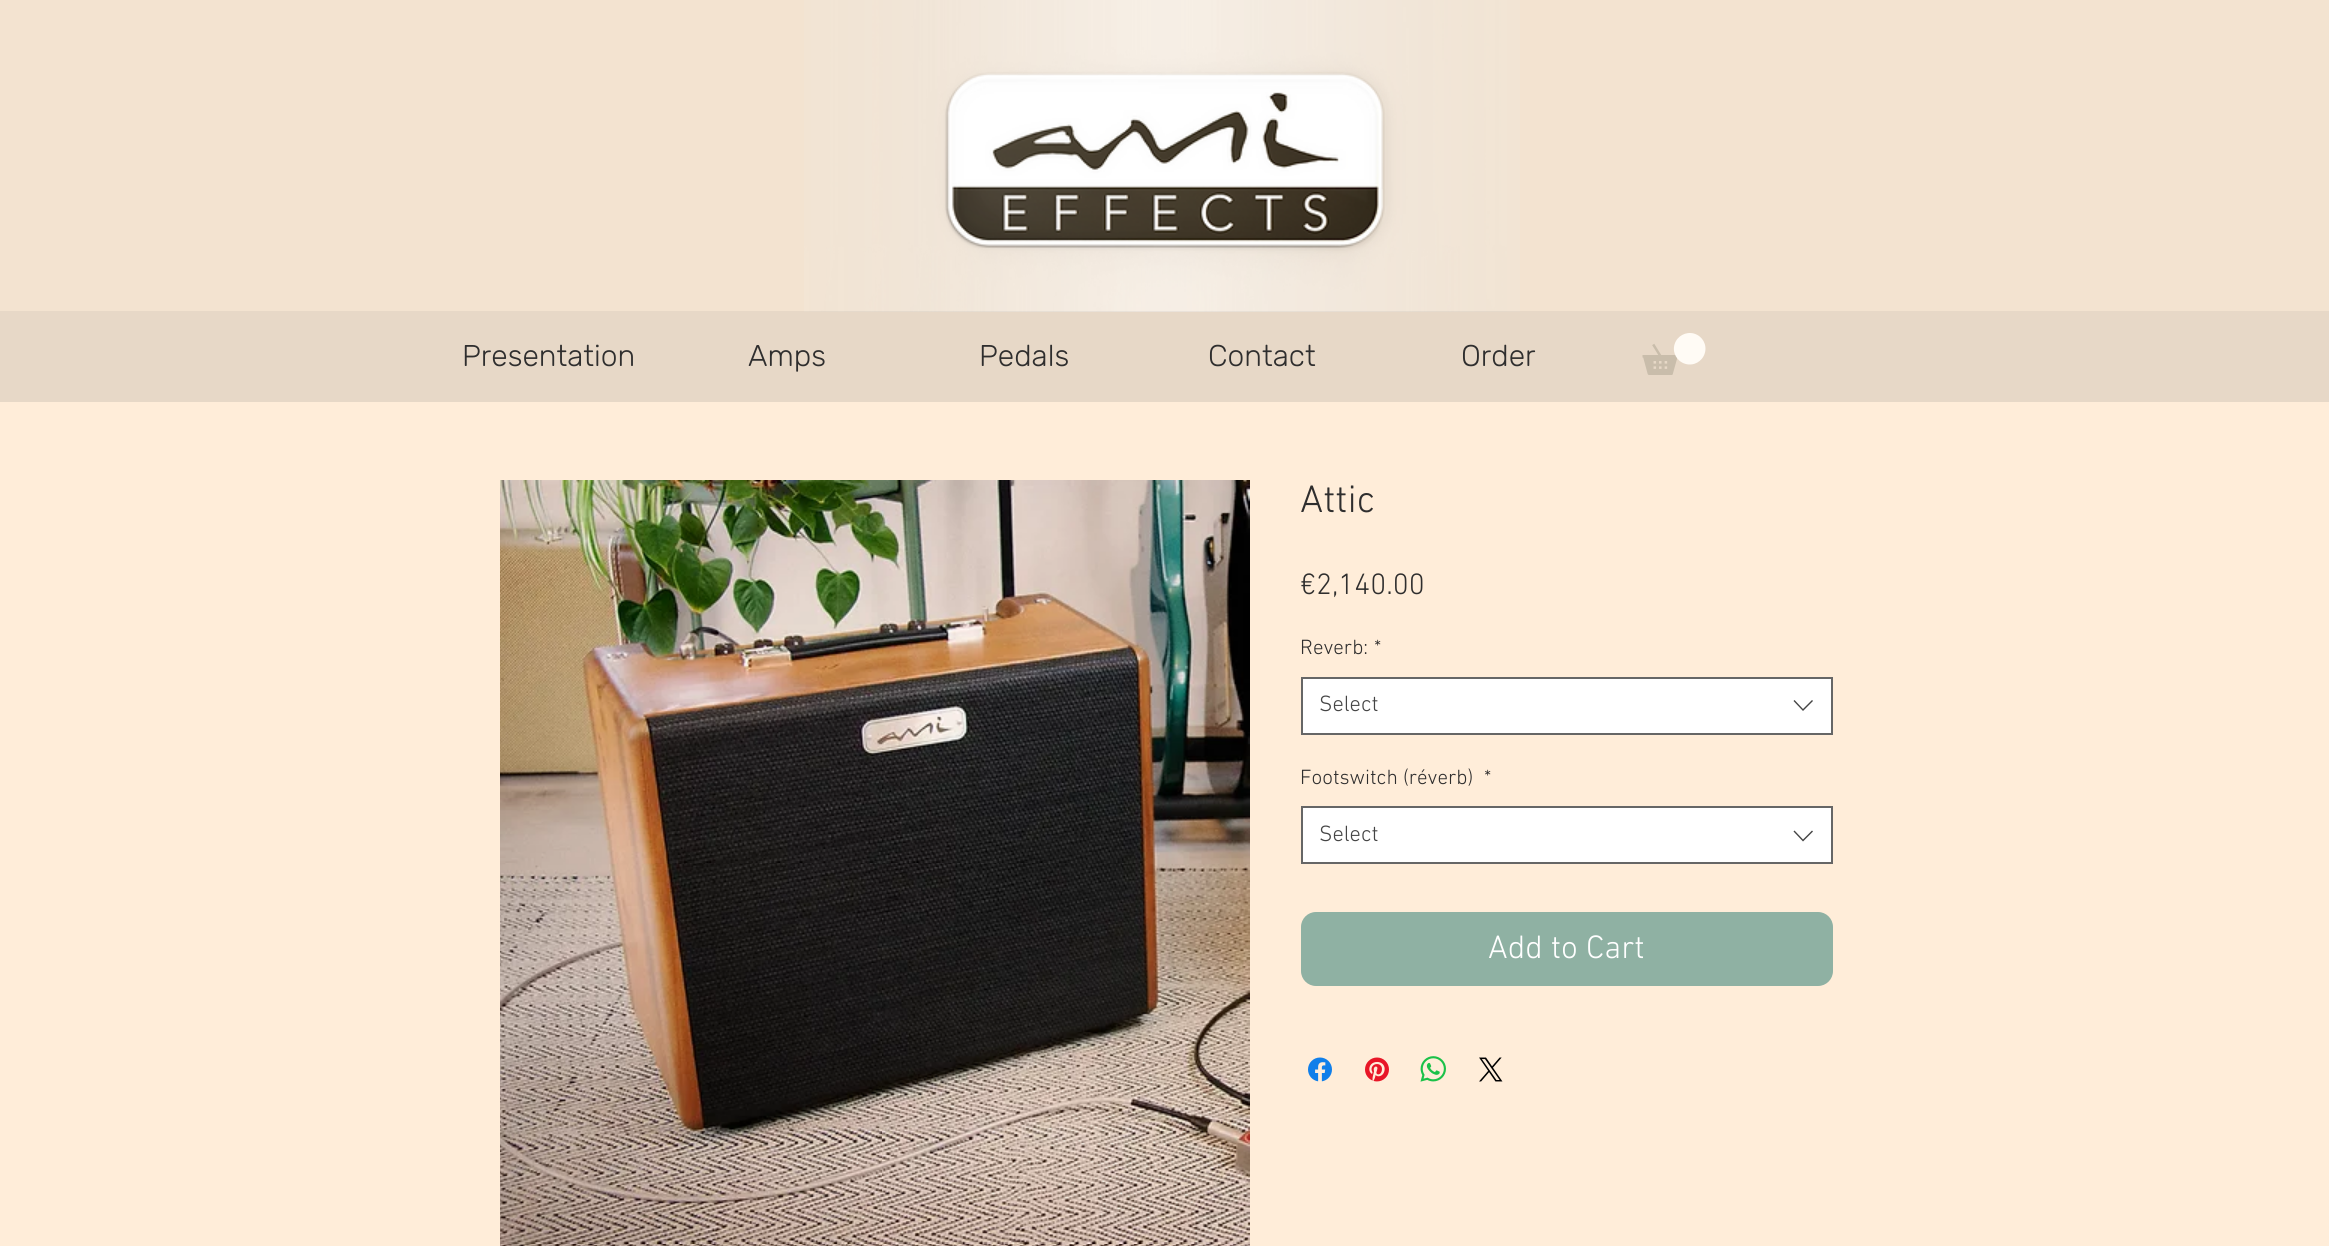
#include <cairo/cairo.h>
#include <math.h>
#include <stddef.h>

typedef struct { double x, y; const char *s; } line_t;
static cairo_t *cr;

static void rgb(unsigned color)
{
	cairo_set_source_rgb(cr, (color >> 16) / 255.0, (color >> 8 & 255) / 255.0, (color & 255) / 255.0);
}

static void rrect(double x, double y, double w, double h, double r)
{
	cairo_new_sub_path(cr);
	cairo_arc(cr, x + w - r, y + h - r, r, 0, M_PI / 2);
	cairo_arc(cr, x + r, y + h - r, r, M_PI / 2, M_PI);
	cairo_arc(cr, x + r, y + r, r, M_PI, 1.5 * M_PI);
	cairo_arc(cr, x + w - r, y + r, r, 1.5 * M_PI, 2 * M_PI);
	cairo_close_path(cr);
}

static void image(const char *path, double x, double y, double w, double h)
{
	cairo_surface_t *image = cairo_image_surface_create_from_png(path);
	cairo_save(cr);
	cairo_set_source_surface(cr, image, x, y);
	cairo_rectangle(cr, x, y, w, h);
	cairo_fill(cr);
	cairo_restore(cr);
	cairo_surface_destroy(image);
}

int main(void) {
	cairo_surface_t *surface = cairo_image_surface_create(CAIRO_FORMAT_RGB24, 2329, 1246);
	cr = cairo_create(surface);
	cairo_font_options_t *options = cairo_font_options_create();
	cairo_font_options_set_hint_metrics(options, CAIRO_HINT_METRICS_OFF);
	cairo_font_options_set_hint_style(options, CAIRO_HINT_STYLE_NONE);
	cairo_set_font_options(cr, options);
	cairo_set_miter_limit(cr, 4);
	rgb(0xffedd9);
	cairo_paint(cr);
	rgb(0xf3e3d0);
	cairo_rectangle(cr, 0, 0, 2329, 402);
	cairo_fill(cr);
	image("img/1.png", 804, 0, 716, 312);
	cairo_set_source_rgba(cr, 0.369, 0.365, 0.361, 0.08);
	cairo_rectangle(cr, 0, 311, 2329, 91);
	cairo_fill(cr);
	image("img/2.png", 1642, 333, 64, 42);
	image("img/3.png", 500, 480, 750, 766);
	rgb(0xffffff);
	cairo_rectangle(cr, 1302, 678, 530, 56);
	cairo_fill_preserve(cr);
	rgb(0x666666);
	cairo_stroke(cr);
	rgb(0x444444);
	cairo_set_fill_rule(cr, CAIRO_FILL_RULE_EVEN_ODD);
	cairo_new_path(cr);
	cairo_move_to(cr, 1812, 700);
	cairo_line_to(cr, 1813, 701);
	cairo_line_to(cr, 1803, 711);
	cairo_line_to(cr, 1793.5, 701);
	cairo_line_to(cr, 1794.5, 700);
	cairo_line_to(cr, 1803, 709);
	cairo_close_path(cr);
	cairo_fill(cr);
	rgb(0xffffff);
	cairo_rectangle(cr, 1302, 807, 530, 56);
	cairo_fill_preserve(cr);
	rgb(0x666666);
	cairo_stroke(cr);
	rgb(0x444444);
	cairo_new_path(cr);
	cairo_move_to(cr, 1812, 830.5);
	cairo_line_to(cr, 1813, 831.5);
	cairo_line_to(cr, 1803, 841.5);
	cairo_line_to(cr, 1793.5, 831.5);
	cairo_line_to(cr, 1794.5, 830.5);
	cairo_line_to(cr, 1803, 839.5);
	cairo_close_path(cr);
	cairo_fill(cr);
	rgb(0x8fb1a3);
	rrect(1301, 912, 532, 74, 15);
	cairo_fill(cr);
	image("img/4.png", 1308, 1057, 24, 25);
	image("img/5.png", 1365, 1057, 24, 25);
	image("img/6.png", 1420, 1056, 26, 26);
	image("img/7.png", 1479, 1057, 24, 25);
	cairo_select_font_face(cr, "Rubik Light", CAIRO_FONT_SLANT_NORMAL, CAIRO_FONT_WEIGHT_NORMAL);
	cairo_set_font_size(cr, 30);
	rgb(0x2f2e2e);
	{
		static const line_t items[] = {
			{462, 366, "Presentation"},
			{748, 366, "Amps"},
			{979, 366, "Pedals"},
			{1208, 366, "Contact"},
			{1461, 366, "Order"},
		};
		for (size_t i = 0; i < sizeof items / sizeof *items; i++) {
			cairo_move_to(cr, items[i].x, items[i].y);
			cairo_show_text(cr, items[i].s);
		}
	}
	cairo_select_font_face(cr, "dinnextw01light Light", CAIRO_FONT_SLANT_NORMAL, CAIRO_FONT_WEIGHT_NORMAL);
	cairo_set_font_size(cr, 39);
	cairo_move_to(cr, 1300, 512);
	cairo_show_text(cr, "Attic");
	cairo_set_font_size(cr, 30);
	cairo_move_to(cr, 1300, 594);
	cairo_show_text(cr, "€2,140.00");
	cairo_set_font_size(cr, 21);
	cairo_move_to(cr, 1300, 654);
	cairo_show_text(cr, "Reverb:");
	cairo_move_to(cr, 1374, 654);
	cairo_show_text(cr, "*");
	cairo_set_font_size(cr, 22.5);
	rgb(0x444444);
	cairo_move_to(cr, 1319, 711);
	cairo_show_text(cr, "Select");
	cairo_set_font_size(cr, 21);
	rgb(0x2f2e2e);
	cairo_move_to(cr, 1300, 784);
	cairo_show_text(cr, "Footswitch (réverb)");
	cairo_move_to(cr, 1484, 784);
	cairo_show_text(cr, "*");
	cairo_set_font_size(cr, 22.5);
	rgb(0x444444);
	cairo_move_to(cr, 1319, 841);
	cairo_show_text(cr, "Select");
	cairo_set_font_size(cr, 33);
	rgb(0xffffff);
	cairo_move_to(cr, 1488, 958);
	cairo_show_text(cr, "Add to Cart");
	cairo_surface_write_to_png(surface, "page.png");
	cairo_font_options_destroy(options);
	cairo_destroy(cr);
	cairo_surface_destroy(surface);
	return 0;
}
